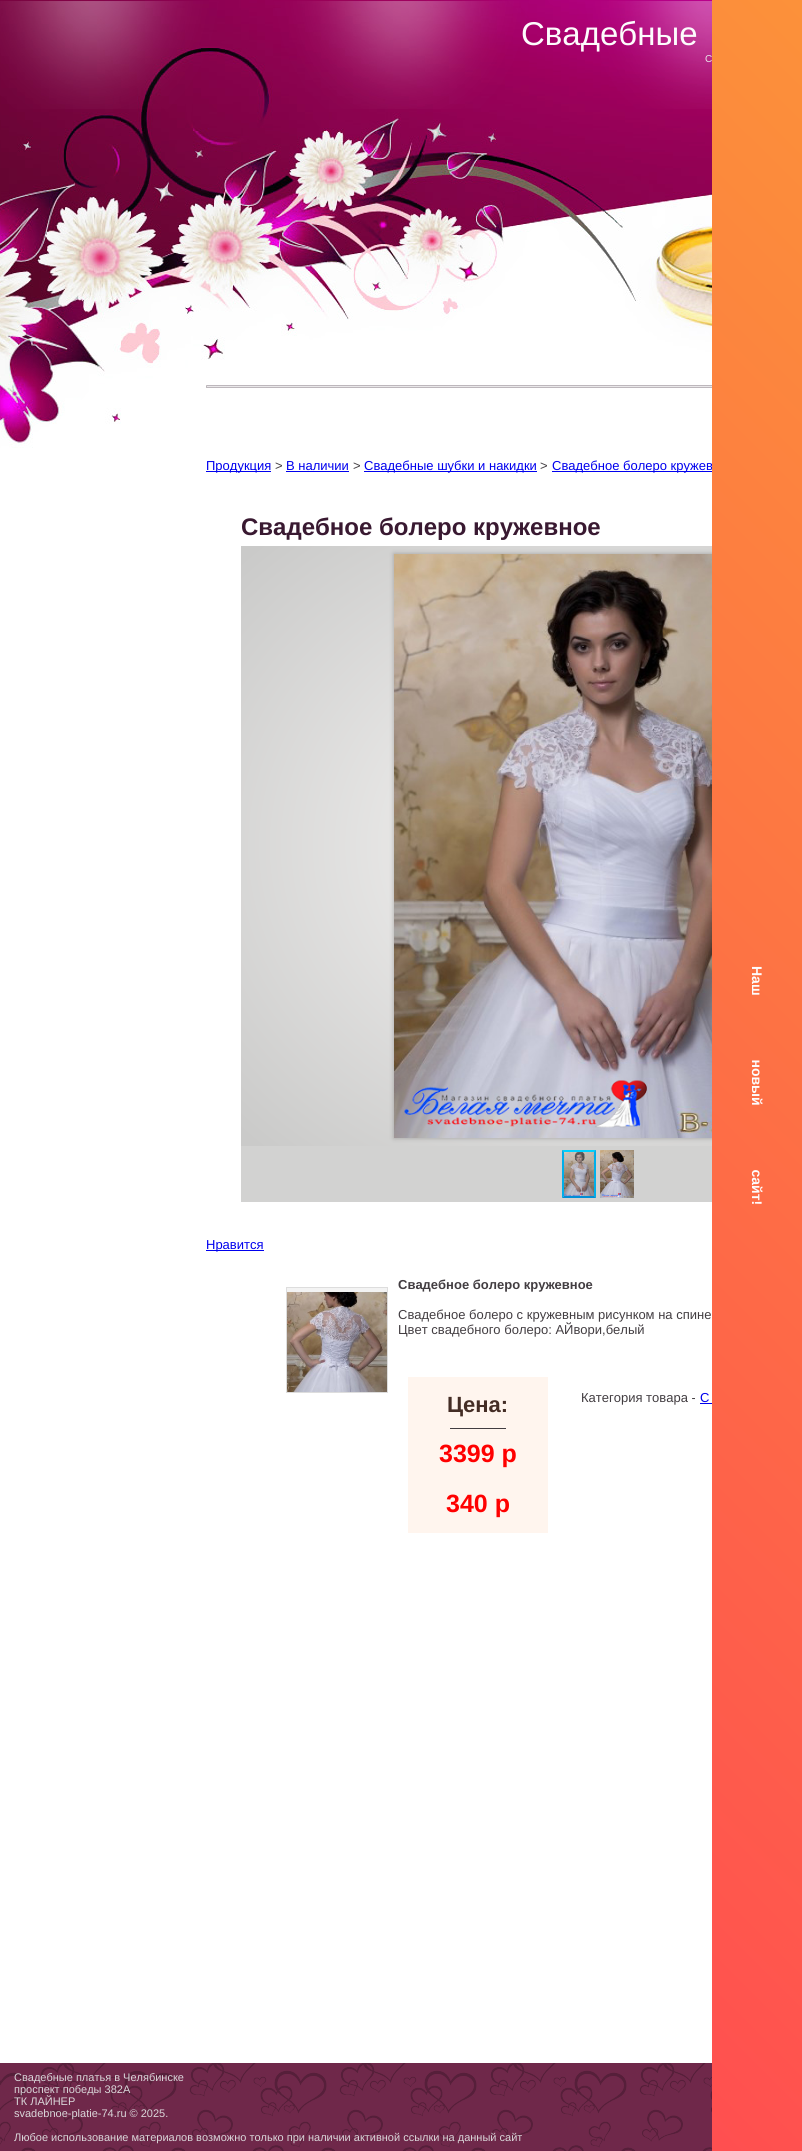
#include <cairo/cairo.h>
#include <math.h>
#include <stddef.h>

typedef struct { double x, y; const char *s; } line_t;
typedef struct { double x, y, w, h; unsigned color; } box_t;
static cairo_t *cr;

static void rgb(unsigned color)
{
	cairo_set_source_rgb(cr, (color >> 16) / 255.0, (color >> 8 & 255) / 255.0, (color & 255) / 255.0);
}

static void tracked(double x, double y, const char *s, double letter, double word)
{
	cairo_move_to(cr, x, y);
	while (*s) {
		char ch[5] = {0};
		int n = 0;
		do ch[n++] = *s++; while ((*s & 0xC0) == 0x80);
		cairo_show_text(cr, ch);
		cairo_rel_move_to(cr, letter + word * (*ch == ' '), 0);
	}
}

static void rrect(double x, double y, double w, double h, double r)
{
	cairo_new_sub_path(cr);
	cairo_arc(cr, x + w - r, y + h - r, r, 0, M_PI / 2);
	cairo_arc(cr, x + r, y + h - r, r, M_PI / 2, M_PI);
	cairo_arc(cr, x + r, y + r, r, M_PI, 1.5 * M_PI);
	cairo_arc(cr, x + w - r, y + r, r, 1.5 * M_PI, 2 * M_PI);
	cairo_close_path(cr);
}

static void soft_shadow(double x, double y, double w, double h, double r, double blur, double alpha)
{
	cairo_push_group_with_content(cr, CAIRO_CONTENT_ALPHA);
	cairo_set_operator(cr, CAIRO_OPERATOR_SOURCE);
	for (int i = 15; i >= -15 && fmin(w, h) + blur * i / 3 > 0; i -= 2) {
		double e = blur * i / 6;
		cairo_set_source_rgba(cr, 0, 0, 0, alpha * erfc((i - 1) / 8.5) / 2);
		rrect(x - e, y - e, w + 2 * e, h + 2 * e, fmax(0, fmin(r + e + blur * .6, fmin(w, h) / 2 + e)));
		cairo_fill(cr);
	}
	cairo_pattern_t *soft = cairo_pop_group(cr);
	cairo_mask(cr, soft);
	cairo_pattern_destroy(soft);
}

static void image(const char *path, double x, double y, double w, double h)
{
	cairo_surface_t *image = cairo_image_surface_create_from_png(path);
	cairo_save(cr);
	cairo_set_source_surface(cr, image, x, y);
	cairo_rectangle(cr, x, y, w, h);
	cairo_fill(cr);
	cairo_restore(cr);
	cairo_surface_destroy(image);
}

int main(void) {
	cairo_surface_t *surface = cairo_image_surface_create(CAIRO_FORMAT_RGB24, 802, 2151);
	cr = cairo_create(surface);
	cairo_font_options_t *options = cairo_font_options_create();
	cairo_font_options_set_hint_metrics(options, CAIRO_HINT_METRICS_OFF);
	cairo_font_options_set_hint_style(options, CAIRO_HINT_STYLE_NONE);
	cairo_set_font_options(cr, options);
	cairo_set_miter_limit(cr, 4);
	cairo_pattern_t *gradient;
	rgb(0xffffff);
	cairo_paint(cr);
	image("img/1.png", 0, 0, 712, 448);
	image("img/2.png", 0, 1, 712, 108);
	{
		static const box_t items[] = {
			{206, 385, 1, 1, 0xc9c4c6},
			{207, 385, 505, 1, 0xbdb7bc},
			{206, 386, 1, 1, 0xbdb7bc},
			{207, 386, 505, 1, 0xe9e7e9},
			{206, 387, 1, 1, 0xbfbbbe},
			{207, 387, 505, 1, 0xbdb7bc},
			{206, 471, 65, 1, 0x0000ee},
			{286, 471, 63, 1, 0x0000ee},
			{364, 471, 173, 1, 0x0000ee},
			{552, 471, 160, 1, 0x0000ee},
		};
		for (size_t i = 0; i < sizeof items / sizeof *items; i++) {
			rgb(items[i].color);
			cairo_rectangle(cr, items[i].x, items[i].y, items[i].w, items[i].h);
			cairo_fill(cr);
		}
	}
	gradient = cairo_pattern_create_radial(0, 0, 0, 0, 0, 1);
	cairo_pattern_set_matrix(gradient, &(cairo_matrix_t){1.0 / 508, 0, 0, 1.0 / 424, -1.0 * 600 / 508, -1.0 * 846 / 424});
	cairo_pattern_add_color_stop_rgba(gradient, 0, 0.953, 0.949, 0.945, 1);
	cairo_pattern_add_color_stop_rgba(gradient, 0.13, 0.953, 0.949, 0.945, 1);
	cairo_pattern_add_color_stop_rgba(gradient, 0.98, 0.792, 0.792, 0.788, 1);
	cairo_set_source(cr, gradient);
	cairo_pattern_destroy(gradient);
	cairo_rectangle(cr, 241, 546, 471, 600);
	cairo_fill(cr);
	rgb(0x000000);
	soft_shadow(394, 554, 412, 584, 0, 2.5, 0.25);
	image("img/3.png", 394, 554, 318, 584);
	rgb(0xd2d2d1);
	cairo_rectangle(cr, 241, 1146, 471, 56);
	cairo_fill(cr);
	image("img/4.png", 562, 1150, 34, 48);
	rgb(0x00d1ff);
	cairo_new_path(cr);
	cairo_move_to(cr, 562, 1150);
	cairo_line_to(cr, 596, 1150);
	cairo_line_to(cr, 594, 1152);
	cairo_line_to(cr, 564, 1152);
	cairo_close_path(cr);
	cairo_fill(cr);
	rgb(0x00afea);
	cairo_new_path(cr);
	cairo_move_to(cr, 596, 1150);
	cairo_line_to(cr, 596, 1198);
	cairo_line_to(cr, 594, 1196);
	cairo_line_to(cr, 594, 1152);
	cairo_close_path(cr);
	cairo_fill(cr);
	rgb(0x008ed6);
	cairo_new_path(cr);
	cairo_move_to(cr, 596, 1198);
	cairo_line_to(cr, 562, 1198);
	cairo_line_to(cr, 564, 1196);
	cairo_line_to(cr, 594, 1196);
	cairo_close_path(cr);
	cairo_fill(cr);
	rgb(0x00afea);
	cairo_new_path(cr);
	cairo_move_to(cr, 562, 1198);
	cairo_line_to(cr, 562, 1150);
	cairo_line_to(cr, 564, 1152);
	cairo_line_to(cr, 564, 1196);
	cairo_close_path(cr);
	cairo_fill(cr);
	image("img/5.png", 600, 1150, 34, 48);
	rgb(0x0000ee);
	cairo_rectangle(cr, 206, 1250, 58, 1);
	cairo_fill(cr);
	rgb(0xf3f3f3);
	cairo_rectangle(cr, 287, 1288, 100, 4);
	cairo_fill(cr);
	cairo_rectangle(cr, 286.5, 1287.5, 101, 105);
	rgb(0xdddddd);
	cairo_set_line_width(cr, 1);
	cairo_stroke(cr);
	image("img/6.png", 287, 1292, 100, 100);
	{
		static const box_t items[] = {
			{408, 1377, 140, 156, 0xfff5ee},
			{450, 1428, 56, 1, 0x423d41},
			{700, 1403, 12, 1, 0x0000ee},
		};
		for (size_t i = 0; i < sizeof items / sizeof *items; i++) {
			rgb(items[i].color);
			cairo_rectangle(cr, items[i].x, items[i].y, items[i].w, items[i].h);
			cairo_fill(cr);
		}
	}
	image("img/7.png", 0, 2063, 712, 88);
	cairo_select_font_face(cr, "Liberation Sans", CAIRO_FONT_SLANT_NORMAL, CAIRO_FONT_WEIGHT_NORMAL);
	cairo_set_font_size(cr, 33);
	rgb(0xfdfcfd);
	cairo_move_to(cr, 521, 45);
	cairo_show_text(cr, "Свадебные");
	cairo_set_font_size(cr, 10);
	rgb(0xe9e7e9);
	cairo_move_to(cr, 705, 62);
	cairo_show_text(cr, "С");
	cairo_set_font_size(cr, 13);
	rgb(0x0000ee);
	cairo_move_to(cr, 206, 470);
	cairo_show_text(cr, "Продукция");
	rgb(0x423d41);
	cairo_move_to(cr, 275, 470);
	cairo_show_text(cr, ">");
	rgb(0x0000ee);
	cairo_move_to(cr, 286, 470);
	cairo_show_text(cr, "В наличии");
	rgb(0x423d41);
	cairo_move_to(cr, 353, 470);
	cairo_show_text(cr, ">");
	rgb(0x0000ee);
	cairo_move_to(cr, 364, 470);
	cairo_show_text(cr, "Свадебные шубки и накидки");
	rgb(0x423d41);
	cairo_move_to(cr, 540, 470);
	cairo_show_text(cr, ">");
	rgb(0x0000ee);
	cairo_move_to(cr, 552, 470);
	cairo_show_text(cr, "Свадебное болеро кружев");
	cairo_select_font_face(cr, "Liberation Sans", CAIRO_FONT_SLANT_NORMAL, CAIRO_FONT_WEIGHT_BOLD);
	cairo_set_font_size(cr, 24);
	rgb(0x391931);
	cairo_move_to(cr, 241, 535);
	cairo_show_text(cr, "Свадебное болеро кружевное");
	cairo_select_font_face(cr, "Liberation Sans", CAIRO_FONT_SLANT_NORMAL, CAIRO_FONT_WEIGHT_NORMAL);
	cairo_set_font_size(cr, 13);
	rgb(0x0000ee);
	cairo_move_to(cr, 206, 1249);
	cairo_show_text(cr, "Нравится");
	cairo_select_font_face(cr, "Liberation Sans", CAIRO_FONT_SLANT_NORMAL, CAIRO_FONT_WEIGHT_BOLD);
	rgb(0x423d41);
	cairo_move_to(cr, 398, 1289);
	cairo_show_text(cr, "Свадебное болеро кружевное");
	cairo_select_font_face(cr, "Liberation Sans", CAIRO_FONT_SLANT_NORMAL, CAIRO_FONT_WEIGHT_NORMAL);
	cairo_move_to(cr, 398, 1319);
	cairo_show_text(cr, "Свадебное болеро с кружевным рисунком на спине");
	cairo_move_to(cr, 398, 1334);
	cairo_show_text(cr, "Цвет свадебного болеро: АЙвори,белый");
	cairo_select_font_face(cr, "Liberation Sans", CAIRO_FONT_SLANT_NORMAL, CAIRO_FONT_WEIGHT_BOLD);
	cairo_set_font_size(cr, 22);
	rgb(0x442d25);
	cairo_move_to(cr, 447, 1412);
	cairo_show_text(cr, "Цена:");
	cairo_set_font_size(cr, 25);
	rgb(0xff0000);
	cairo_move_to(cr, 439, 1462);
	cairo_show_text(cr, "3399 р");
	cairo_move_to(cr, 446, 1512);
	cairo_show_text(cr, "340 р");
	cairo_select_font_face(cr, "Liberation Sans", CAIRO_FONT_SLANT_NORMAL, CAIRO_FONT_WEIGHT_NORMAL);
	cairo_set_font_size(cr, 13);
	rgb(0x423d41);
	cairo_move_to(cr, 581, 1402);
	cairo_show_text(cr, "Категория товара -");
	rgb(0x0000ee);
	cairo_move_to(cr, 700, 1402);
	cairo_show_text(cr, "С");
	gradient = cairo_pattern_create_linear(192, 1651, 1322, 520);
	cairo_pattern_add_color_stop_rgba(gradient, 0, 1, 0.306, 0.314, 1);
	cairo_pattern_add_color_stop_rgba(gradient, 1, 0.988, 0.569, 0.227, 1);
	cairo_set_source(cr, gradient);
	cairo_pattern_destroy(gradient);
	cairo_rectangle(cr, 712, 0, 90, 2151);
	cairo_fill(cr);
	cairo_select_font_face(cr, "Liberation Sans", CAIRO_FONT_SLANT_NORMAL, CAIRO_FONT_WEIGHT_BOLD);
	cairo_set_font_size(cr, 14);
	rgb(0xfdfcfd);
	cairo_save(cr);
	cairo_translate(cr, 752, 966);
	cairo_rotate(cr, 90 * M_PI / 180);
	tracked(0, 0, "Наш новый сайт!", 0, 60);
	cairo_restore(cr);
	cairo_select_font_face(cr, "Liberation Sans", CAIRO_FONT_SLANT_NORMAL, CAIRO_FONT_WEIGHT_NORMAL);
	cairo_set_font_size(cr, 11);
	rgb(0xdad7da);
	{
		static const line_t items[] = {
			{14, 2081, "Свадебные платья в Челябинске"},
			{14, 2093, "проспект победы 382А"},
			{14, 2105, "ТК ЛАЙНЕР"},
			{14, 2117, "svadebnoe-platie-74.ru © 2025."},
			{14, 2141, "Любое использование материалов возможно только при наличии активной ссылки на данный сайт"},
		};
		for (size_t i = 0; i < sizeof items / sizeof *items; i++) {
			cairo_move_to(cr, items[i].x, items[i].y);
			cairo_show_text(cr, items[i].s);
		}
	}
	cairo_surface_write_to_png(surface, "page.png");
	cairo_font_options_destroy(options);
	cairo_destroy(cr);
	cairo_surface_destroy(surface);
	return 0;
}
